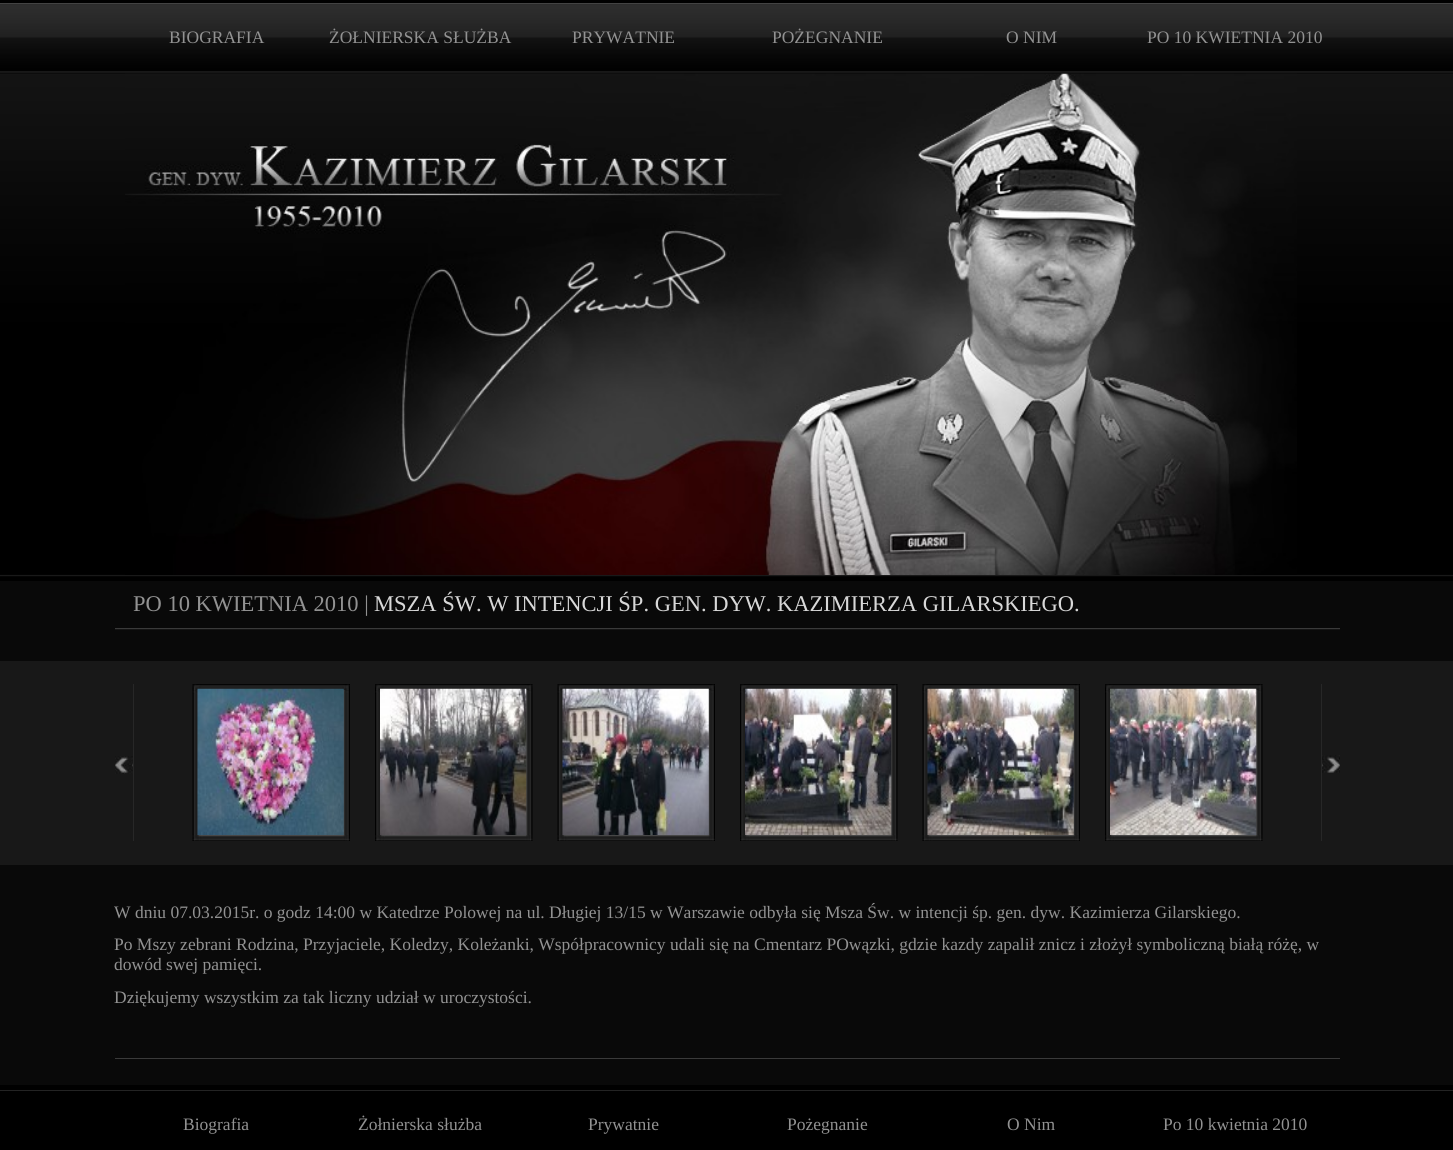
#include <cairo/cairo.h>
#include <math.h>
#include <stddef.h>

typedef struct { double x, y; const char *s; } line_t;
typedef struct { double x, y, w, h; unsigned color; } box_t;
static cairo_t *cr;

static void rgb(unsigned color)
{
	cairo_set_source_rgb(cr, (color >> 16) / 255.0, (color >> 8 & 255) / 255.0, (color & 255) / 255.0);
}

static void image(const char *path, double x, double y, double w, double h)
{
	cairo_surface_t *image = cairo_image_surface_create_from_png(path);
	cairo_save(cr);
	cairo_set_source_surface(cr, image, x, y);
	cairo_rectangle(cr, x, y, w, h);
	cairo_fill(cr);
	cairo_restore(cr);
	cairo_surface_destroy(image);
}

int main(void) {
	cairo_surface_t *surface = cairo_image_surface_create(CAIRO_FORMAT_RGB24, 1453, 1150);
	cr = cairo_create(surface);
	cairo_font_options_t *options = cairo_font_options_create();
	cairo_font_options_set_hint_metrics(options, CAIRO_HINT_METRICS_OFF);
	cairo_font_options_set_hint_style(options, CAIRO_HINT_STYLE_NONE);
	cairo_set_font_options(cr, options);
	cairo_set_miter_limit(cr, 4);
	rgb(0x000000);
	cairo_paint(cr);
	image("img/1.png", 0, 4, 1453, 69);
	rgb(0x434343);
	cairo_rectangle(cr, 0, 3, 1453, 1);
	cairo_fill(cr);
	rgb(0x181818);
	cairo_rectangle(cr, 0, 71, 1453, 1);
	cairo_fill(cr);
	image("img/2.png", 0, 74, 1453, 503);
	rgb(0x0c0c0c);
	cairo_rectangle(cr, 0, 73, 1453, 1);
	cairo_fill(cr);
	rgb(0x191919);
	cairo_rectangle(cr, 0, 575, 1453, 1);
	cairo_fill(cr);
	image("img/3.png", 125, 73, 1172, 502);
	{
		static const box_t items[] = {
			{0, 581, 1453, 80, 0x090909},
			{115, 628, 1225, 1, 0x3a3a3a},
			{115, 629, 1225, 1, 0x151515},
			{0, 661, 1453, 204, 0x181818},
		};
		for (size_t i = 0; i < sizeof items / sizeof *items; i++) {
			rgb(items[i].color);
			cairo_rectangle(cr, items[i].x, items[i].y, items[i].w, items[i].h);
			cairo_fill(cr);
		}
	}
	image("img/4.png", 115, 756, 18, 18);
	rgb(0x272727);
	cairo_rectangle(cr, 133, 684, 1, 157);
	cairo_fill(cr);
	image("img/5.png", 192, 684, 158, 157);
	image("img/6.png", 197, 688, 147, 147);
	image("img/7.png", 375, 684, 158, 157);
	image("img/8.png", 380, 688, 147, 147);
	image("img/9.png", 557, 684, 158, 157);
	image("img/10.png", 562, 688, 147, 147);
	image("img/11.png", 740, 684, 158, 157);
	image("img/12.png", 745, 688, 147, 147);
	image("img/13.png", 922, 684, 158, 157);
	image("img/14.png", 927, 688, 147, 147);
	image("img/11.png", 1105, 684, 158, 157);
	image("img/15.png", 1110, 688, 147, 147);
	image("img/16.png", 1322, 755, 18, 18);
	{
		static const box_t items[] = {
			{1321, 684, 1, 157, 0x272727},
			{0, 865, 1453, 220, 0x090909},
			{115, 1058, 1225, 1, 0x3a3a3a},
			{0, 1090, 1453, 1, 0x232323},
		};
		for (size_t i = 0; i < sizeof items / sizeof *items; i++) {
			rgb(items[i].color);
			cairo_rectangle(cr, items[i].x, items[i].y, items[i].w, items[i].h);
			cairo_fill(cr);
		}
	}
	cairo_select_font_face(cr, "Liberation Serif", CAIRO_FONT_SLANT_NORMAL, CAIRO_FONT_WEIGHT_NORMAL);
	cairo_set_font_size(cr, 17.5);
	rgb(0x929292);
	{
		static const line_t items[] = {
			{169, 43, "BIOGRAFIA"},
			{329, 43, "ŻOŁNIERSKA SŁUŻBA"},
			{572, 43, "PRYWATNIE"},
			{772, 43, "POŻEGNANIE"},
			{1006, 43, "O NIM"},
			{1147, 43, "PO 10 KWIETNIA 2010"},
		};
		for (size_t i = 0; i < sizeof items / sizeof *items; i++) {
			cairo_move_to(cr, items[i].x, items[i].y);
			cairo_show_text(cr, items[i].s);
		}
	}
	cairo_set_font_size(cr, 22.5);
	cairo_move_to(cr, 133, 611);
	cairo_show_text(cr, "PO 10 KWIETNIA 2010 |");
	rgb(0xd8d8d8);
	cairo_move_to(cr, 374, 611);
	cairo_show_text(cr, "MSZA ŚW. W INTENCJI ŚP. GEN. DYW. KAZIMIERZA GILARSKIEGO.");
	cairo_set_font_size(cr, 17.5);
	rgb(0x929292);
	{
		static const line_t items[] = {
			{114, 918, "W dniu 07.03.2015r. o godz 14:00 w Katedrze Polowej na ul. Długiej 13/15 w Warszawie odbyła się Msza Św. w intencji śp. gen. dyw. Kazimierza Gilarskiego."},
			{114, 950, "Po Mszy zebrani Rodzina, Przyjaciele, Koledzy, Koleżanki, Współpracownicy udali się na Cmentarz POwązki, gdzie kazdy zapalił znicz i złożył symboliczną białą różę, w"},
			{114, 970, "dowód swej pamięci."},
			{114, 1003, "Dziękujemy wszystkim za tak liczny udział w uroczystości."},
			{183, 1130, "Biografia"},
			{358, 1130, "Żołnierska służba"},
			{588, 1130, "Prywatnie"},
			{787, 1130, "Pożegnanie"},
			{1007, 1130, "O Nim"},
			{1163, 1130, "Po 10 kwietnia 2010"},
		};
		for (size_t i = 0; i < sizeof items / sizeof *items; i++) {
			cairo_move_to(cr, items[i].x, items[i].y);
			cairo_show_text(cr, items[i].s);
		}
	}
	cairo_surface_write_to_png(surface, "page.png");
	cairo_font_options_destroy(options);
	cairo_destroy(cr);
	cairo_surface_destroy(surface);
	return 0;
}
